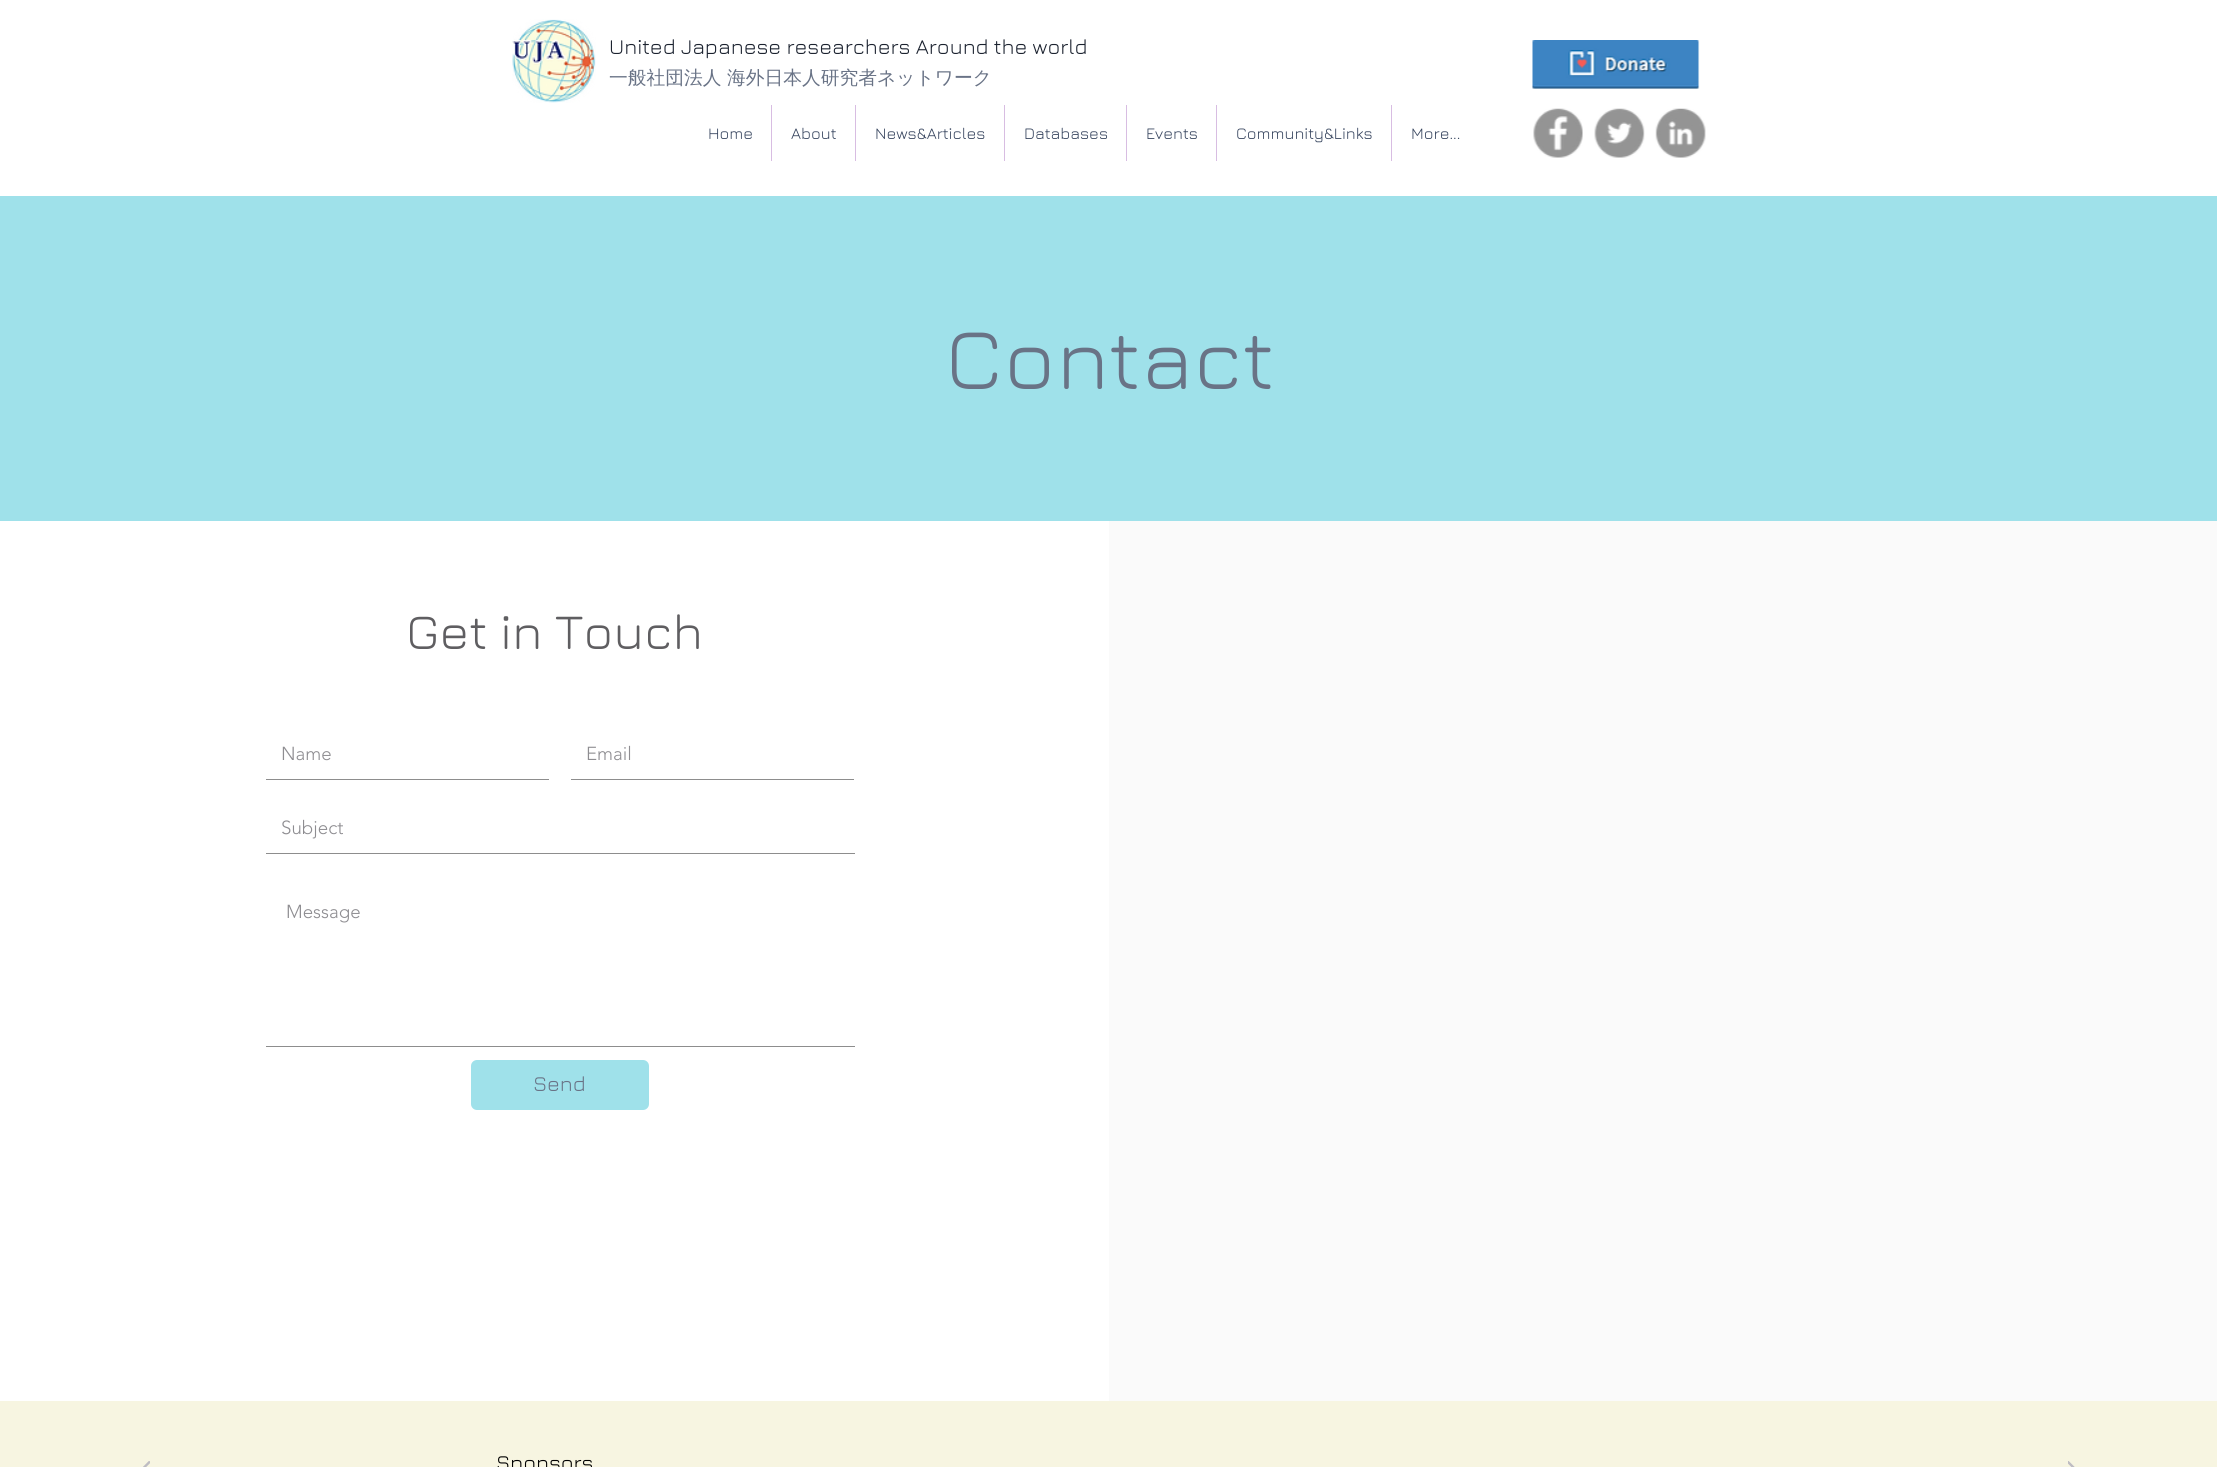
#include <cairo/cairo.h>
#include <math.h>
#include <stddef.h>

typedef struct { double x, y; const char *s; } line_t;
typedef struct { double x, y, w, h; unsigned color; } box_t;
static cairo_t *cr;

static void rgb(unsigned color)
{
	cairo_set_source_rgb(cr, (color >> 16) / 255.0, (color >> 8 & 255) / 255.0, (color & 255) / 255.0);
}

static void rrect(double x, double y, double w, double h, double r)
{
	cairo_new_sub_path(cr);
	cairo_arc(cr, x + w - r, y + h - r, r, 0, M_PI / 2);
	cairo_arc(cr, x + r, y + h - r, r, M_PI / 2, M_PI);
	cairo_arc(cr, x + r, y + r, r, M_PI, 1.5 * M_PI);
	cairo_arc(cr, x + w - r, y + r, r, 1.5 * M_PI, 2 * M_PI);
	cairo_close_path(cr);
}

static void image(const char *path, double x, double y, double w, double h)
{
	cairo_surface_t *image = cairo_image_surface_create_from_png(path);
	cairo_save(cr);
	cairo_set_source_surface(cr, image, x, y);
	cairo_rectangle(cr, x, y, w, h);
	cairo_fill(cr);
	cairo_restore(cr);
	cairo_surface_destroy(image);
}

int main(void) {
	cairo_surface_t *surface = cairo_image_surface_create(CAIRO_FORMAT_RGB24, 2217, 1467);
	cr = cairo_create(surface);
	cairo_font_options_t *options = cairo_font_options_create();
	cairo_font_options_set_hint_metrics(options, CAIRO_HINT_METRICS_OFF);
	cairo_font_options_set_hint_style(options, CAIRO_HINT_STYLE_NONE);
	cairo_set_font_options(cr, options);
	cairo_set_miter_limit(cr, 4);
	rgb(0xffffff);
	cairo_paint(cr);
	image("img/1.png", 512, 19, 84, 84);
	image("img/2.png", 1532, 40, 168, 49);
	{
		static const box_t items[] = {
			{771, 105, 1, 56, 0xd8bde2},
			{855, 105, 1, 56, 0xd8bde2},
			{1004, 105, 1, 56, 0xd8bde2},
			{1126, 105, 1, 56, 0xd8bde2},
			{1216, 105, 1, 56, 0xd8bde2},
			{1391, 105, 1, 56, 0xd8bde2},
		};
		for (size_t i = 0; i < sizeof items / sizeof *items; i++) {
			rgb(items[i].color);
			cairo_rectangle(cr, items[i].x, items[i].y, items[i].w, items[i].h);
			cairo_fill(cr);
		}
	}
	image("img/3.png", 1533, 108, 50, 50);
	image("img/4.png", 1594, 108, 51, 50);
	image("img/5.png", 1655, 108, 51, 50);
	{
		static const box_t items[] = {
			{0, 196, 2217, 325, 0x9fe1ea},
			{266, 779, 283, 1, 0x8d8d8d},
			{571, 779, 283, 1, 0x8d8d8d},
			{266, 853, 589, 1, 0x8d8d8d},
			{266, 1046, 589, 1, 0x8d8d8d},
		};
		for (size_t i = 0; i < sizeof items / sizeof *items; i++) {
			rgb(items[i].color);
			cairo_rectangle(cr, items[i].x, items[i].y, items[i].w, items[i].h);
			cairo_fill(cr);
		}
	}
	rgb(0x9fe1ea);
	rrect(471, 1060, 178, 50, 6);
	cairo_fill(cr);
	rgb(0xfafafa);
	cairo_rectangle(cr, 1109, 521, 1108, 880);
	cairo_fill(cr);
	rgb(0xf7f5e1);
	cairo_rectangle(cr, 0, 1401, 2217, 66);
	cairo_fill(cr);
	image("img/6.png", 143, 1461, 7, 6);
	image("img/7.png", 2068, 1461, 7, 6);
	cairo_select_font_face(cr, "Jura", CAIRO_FONT_SLANT_NORMAL, CAIRO_FONT_WEIGHT_NORMAL);
	cairo_set_font_size(cr, 21.25);
	rgb(0x1b222f);
	cairo_move_to(cr, 609, 54);
	cairo_show_text(cr, "United Japanese researchers Around the world");
	cairo_select_font_face(cr, "WenQuanYi Zen Hei Medium", CAIRO_FONT_SLANT_NORMAL, CAIRO_FONT_WEIGHT_NORMAL);
	cairo_set_font_size(cr, 18.75);
	rgb(0x697386);
	cairo_move_to(cr, 609, 84);
	cairo_show_text(cr, "一般社団法人 海外日本人研究者ネットワーク");
	cairo_select_font_face(cr, "Jura", CAIRO_FONT_SLANT_NORMAL, CAIRO_FONT_WEIGHT_NORMAL);
	cairo_set_font_size(cr, 16.25);
	rgb(0x35435d);
	{
		static const line_t items[] = {
			{708, 139, "Home"},
			{791, 139, "About"},
			{875, 139, "News&Articles"},
			{1024, 139, "Databases"},
			{1146, 139, "Events"},
			{1236, 139, "Community&Links"},
			{1411, 139, "More..."},
		};
		for (size_t i = 0; i < sizeof items / sizeof *items; i++) {
			cairo_move_to(cr, items[i].x, items[i].y);
			cairo_show_text(cr, items[i].s);
		}
	}
	cairo_set_font_size(cr, 87.5);
	rgb(0x697386);
	cairo_move_to(cr, 945, 389);
	cairo_show_text(cr, "Contact");
	cairo_set_font_size(cr, 50);
	rgb(0x5f5e61);
	cairo_move_to(cr, 406, 649);
	cairo_show_text(cr, "Get in Touch");
	cairo_select_font_face(cr, "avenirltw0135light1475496 Light", CAIRO_FONT_SLANT_NORMAL, CAIRO_FONT_WEIGHT_NORMAL);
	cairo_set_font_size(cr, 18.75);
	rgb(0x8e8d91);
	{
		static const line_t items[] = {
			{281, 760, "Name"},
			{586, 760, "Email"},
			{281, 834, "Subject"},
			{286, 918, "Message"},
		};
		for (size_t i = 0; i < sizeof items / sizeof *items; i++) {
			cairo_move_to(cr, items[i].x, items[i].y);
			cairo_show_text(cr, items[i].s);
		}
	}
	cairo_select_font_face(cr, "Jura", CAIRO_FONT_SLANT_NORMAL, CAIRO_FONT_WEIGHT_NORMAL);
	cairo_set_font_size(cr, 21.25);
	rgb(0x697386);
	cairo_move_to(cr, 533, 1091);
	cairo_show_text(cr, "Send");
	rgb(0x000000);
	cairo_move_to(cr, 496, 1470);
	cairo_show_text(cr, "Sponsors");
	cairo_surface_write_to_png(surface, "page.png");
	cairo_font_options_destroy(options);
	cairo_destroy(cr);
	cairo_surface_destroy(surface);
	return 0;
}
